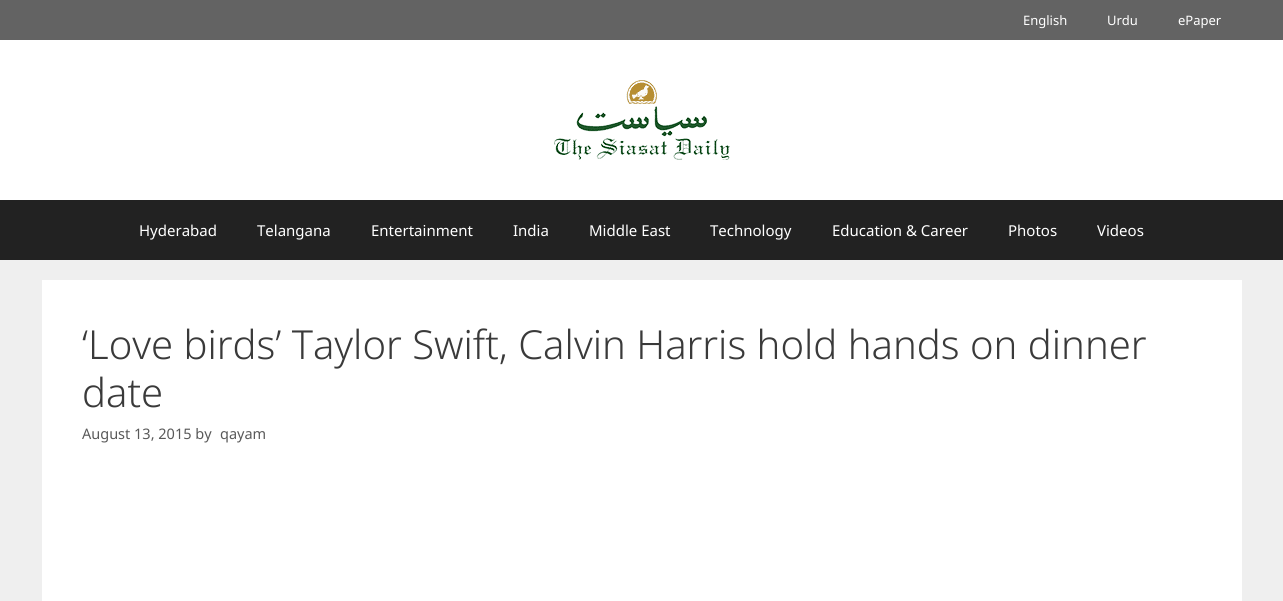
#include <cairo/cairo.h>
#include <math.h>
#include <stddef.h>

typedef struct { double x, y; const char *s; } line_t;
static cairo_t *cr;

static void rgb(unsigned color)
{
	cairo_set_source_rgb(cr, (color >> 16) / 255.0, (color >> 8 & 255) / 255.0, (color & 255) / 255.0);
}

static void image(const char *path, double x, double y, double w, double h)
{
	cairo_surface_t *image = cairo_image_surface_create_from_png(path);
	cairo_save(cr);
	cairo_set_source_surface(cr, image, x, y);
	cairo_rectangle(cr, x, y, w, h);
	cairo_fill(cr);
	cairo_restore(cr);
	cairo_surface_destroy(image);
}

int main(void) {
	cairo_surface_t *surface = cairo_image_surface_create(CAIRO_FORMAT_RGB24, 1283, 601);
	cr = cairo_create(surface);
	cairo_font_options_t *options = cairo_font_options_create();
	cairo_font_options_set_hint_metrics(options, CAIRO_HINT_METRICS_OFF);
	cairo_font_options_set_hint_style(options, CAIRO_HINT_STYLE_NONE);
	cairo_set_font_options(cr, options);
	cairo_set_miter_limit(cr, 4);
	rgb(0xefefef);
	cairo_paint(cr);
	rgb(0x636363);
	cairo_rectangle(cr, 0, 0, 1283, 40);
	cairo_fill(cr);
	rgb(0xffffff);
	cairo_rectangle(cr, 0, 40, 1283, 160);
	cairo_fill(cr);
	image("img/1.png", 554, 80, 176, 80);
	rgb(0x222222);
	cairo_rectangle(cr, 0, 200, 1283, 60);
	cairo_fill(cr);
	rgb(0xffffff);
	cairo_rectangle(cr, 42, 280, 1200, 321);
	cairo_fill(cr);
	cairo_select_font_face(cr, "Noto Sans", CAIRO_FONT_SLANT_NORMAL, CAIRO_FONT_WEIGHT_NORMAL);
	cairo_set_font_size(cr, 13);
	{
		static const line_t items[] = {
			{1023, 25, "English"},
			{1107, 25, "Urdu"},
			{1178, 25, "ePaper"},
		};
		for (size_t i = 0; i < sizeof items / sizeof *items; i++) {
			cairo_move_to(cr, items[i].x, items[i].y);
			cairo_show_text(cr, items[i].s);
		}
	}
	cairo_set_font_size(cr, 15);
	{
		static const line_t items[] = {
			{139, 236, "Hyderabad"},
			{257, 236, "Telangana"},
			{371, 236, "Entertainment"},
			{513, 236, "India"},
			{589, 236, "Middle East"},
			{710, 236, "Technology"},
			{832, 236, "Education & Career"},
			{1008, 236, "Photos"},
			{1097, 236, "Videos"},
		};
		for (size_t i = 0; i < sizeof items / sizeof *items; i++) {
			cairo_move_to(cr, items[i].x, items[i].y);
			cairo_show_text(cr, items[i].s);
		}
	}
	cairo_select_font_face(cr, "Noto Sans Light", CAIRO_FONT_SLANT_NORMAL, CAIRO_FONT_WEIGHT_NORMAL);
	cairo_set_font_size(cr, 40);
	rgb(0x3a3a3a);
	cairo_move_to(cr, 82, 359);
	cairo_show_text(cr, "‘Love birds’ Taylor Swift, Calvin Harris hold hands on dinner");
	cairo_move_to(cr, 82, 407);
	cairo_show_text(cr, "date");
	cairo_select_font_face(cr, "Noto Sans", CAIRO_FONT_SLANT_NORMAL, CAIRO_FONT_WEIGHT_NORMAL);
	cairo_set_font_size(cr, 14.5);
	rgb(0x595959);
	cairo_move_to(cr, 82, 439);
	cairo_show_text(cr, "August 13, 2015 by");
	cairo_move_to(cr, 220, 439);
	cairo_show_text(cr, "qayam");
	cairo_surface_write_to_png(surface, "page.png");
	cairo_font_options_destroy(options);
	cairo_destroy(cr);
	cairo_surface_destroy(surface);
	return 0;
}
